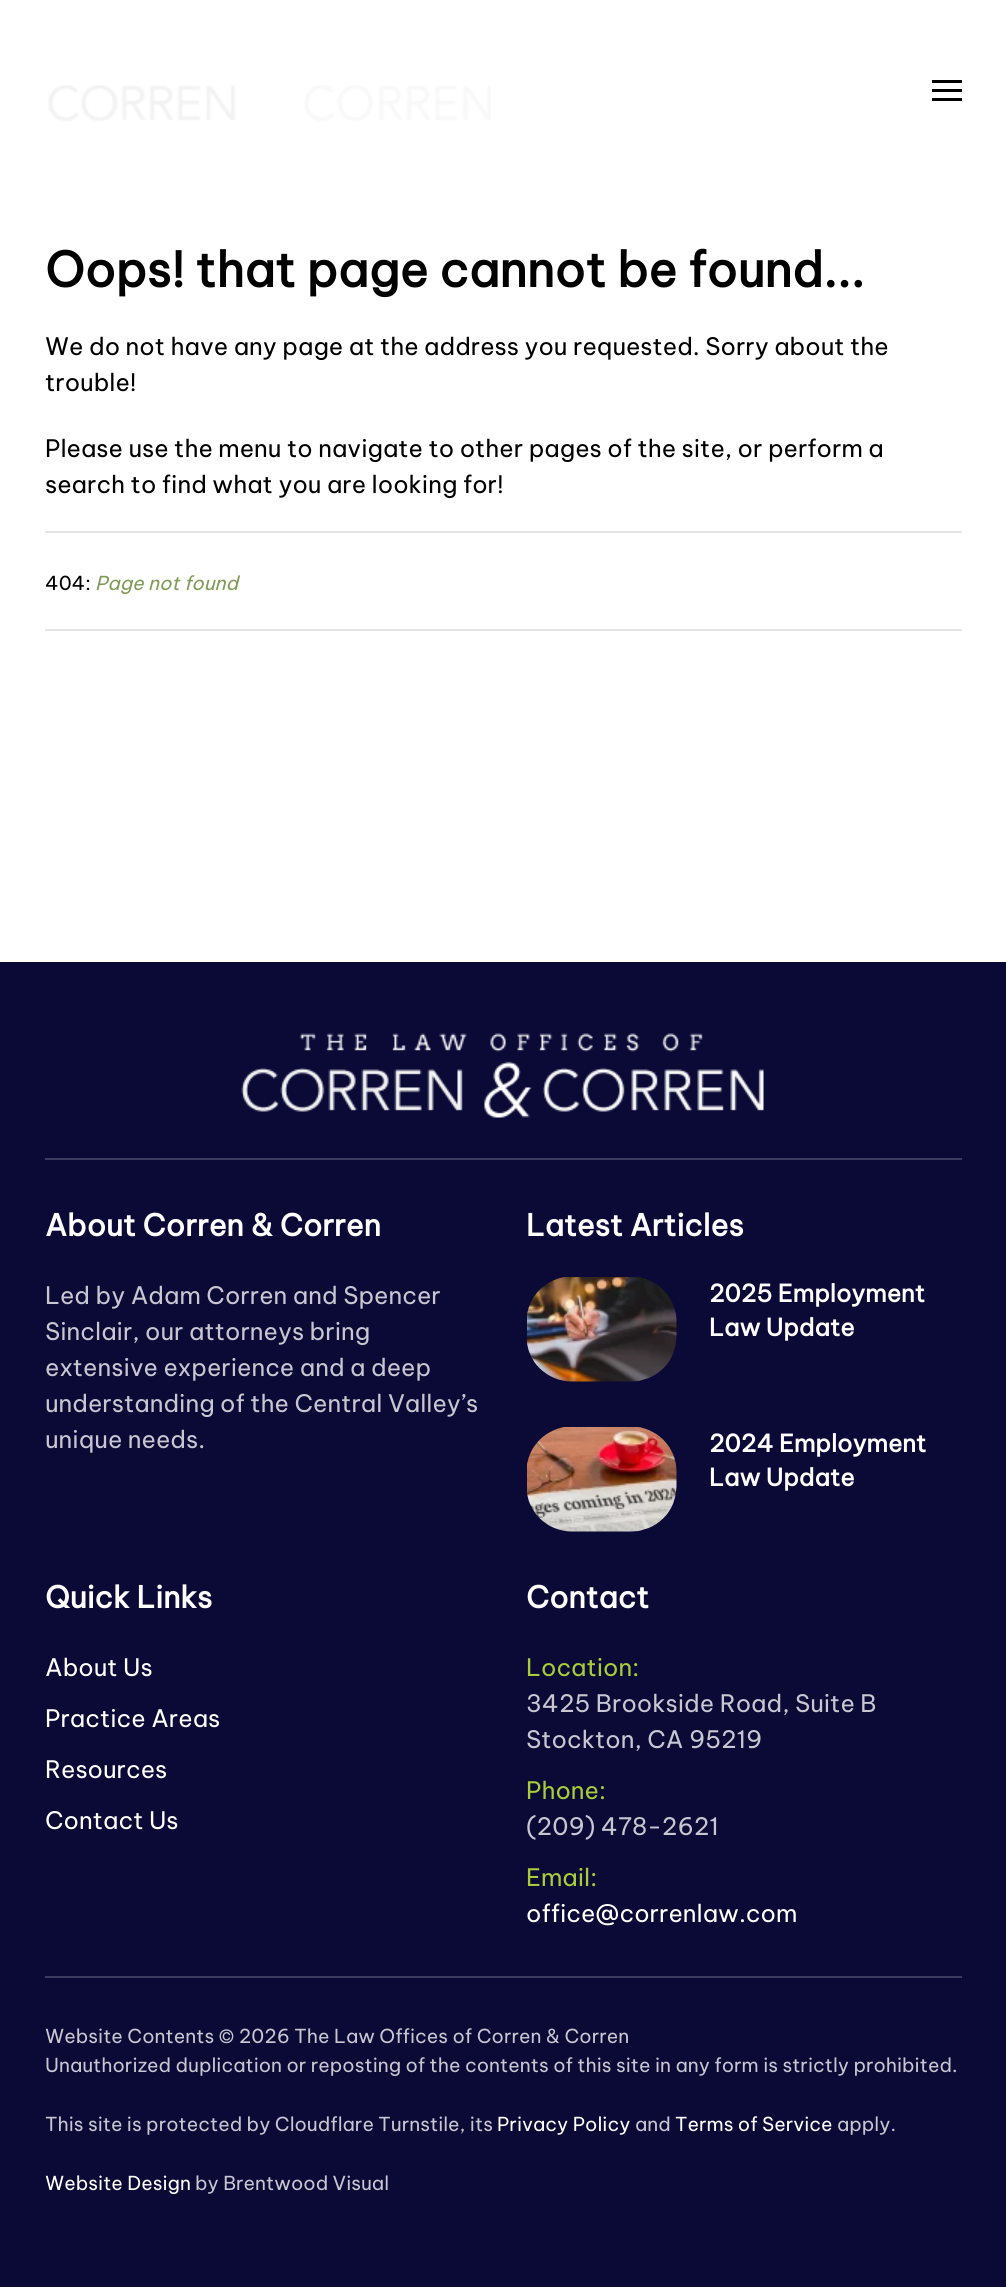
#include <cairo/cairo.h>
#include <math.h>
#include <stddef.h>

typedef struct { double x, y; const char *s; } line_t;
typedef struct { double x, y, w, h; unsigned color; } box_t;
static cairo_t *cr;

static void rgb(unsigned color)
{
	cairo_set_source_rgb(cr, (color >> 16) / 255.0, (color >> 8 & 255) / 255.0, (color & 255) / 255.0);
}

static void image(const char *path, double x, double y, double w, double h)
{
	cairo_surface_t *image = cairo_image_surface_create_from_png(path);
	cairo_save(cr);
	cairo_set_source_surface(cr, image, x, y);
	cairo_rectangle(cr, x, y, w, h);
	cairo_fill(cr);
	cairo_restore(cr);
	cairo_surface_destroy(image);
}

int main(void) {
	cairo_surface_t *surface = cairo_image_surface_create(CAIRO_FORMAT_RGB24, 1006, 2287);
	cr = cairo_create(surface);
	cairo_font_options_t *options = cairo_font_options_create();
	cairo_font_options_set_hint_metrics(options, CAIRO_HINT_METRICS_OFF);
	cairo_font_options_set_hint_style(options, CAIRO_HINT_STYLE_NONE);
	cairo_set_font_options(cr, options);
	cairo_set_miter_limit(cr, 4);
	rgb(0xffffff);
	cairo_paint(cr);
	image("img/1.png", 48, 85, 443, 37);
	{
		static const box_t items[] = {
			{932, 80, 30, 3, 0x000000},
			{932, 89, 30, 3, 0x000000},
			{932, 98, 30, 3, 0x000000},
			{45, 531, 917, 2, 0xe5e5e5},
			{45, 629, 917, 2, 0xe5e5e5},
			{0, 962, 1006, 1325, 0x0b0936},
		};
		for (size_t i = 0; i < sizeof items / sizeof *items; i++) {
			rgb(items[i].color);
			cairo_rectangle(cr, items[i].x, items[i].y, items[i].w, items[i].h);
			cairo_fill(cr);
		}
	}
	image("img/2.png", 241, 1033, 523, 85);
	rgb(0x3c3a5e);
	cairo_rectangle(cr, 45, 1158, 917, 2);
	cairo_fill(cr);
	image("img/3.png", 527, 1277, 150, 105);
	image("img/4.png", 527, 1427, 150, 105);
	cairo_rectangle(cr, 45, 1976, 917, 2);
	cairo_fill(cr);
	cairo_select_font_face(cr, "Be Vietnam Pro", CAIRO_FONT_SLANT_NORMAL, CAIRO_FONT_WEIGHT_BOLD);
	cairo_set_font_size(cr, 48);
	rgb(0x000000);
	cairo_move_to(cr, 45, 287);
	cairo_show_text(cr, "Oops! that page cannot be found...");
	cairo_select_font_face(cr, "Be Vietnam Pro", CAIRO_FONT_SLANT_NORMAL, CAIRO_FONT_WEIGHT_NORMAL);
	cairo_set_font_size(cr, 24);
	{
		static const line_t items[] = {
			{45, 355, "We do not have any page at the address you requested. Sorry about the"},
			{45, 391, "trouble!"},
			{45, 457, "Please use the menu to navigate to other pages of the site, or perform a"},
			{45, 493, "search to find what you are looking for!"},
		};
		for (size_t i = 0; i < sizeof items / sizeof *items; i++) {
			cairo_move_to(cr, items[i].x, items[i].y);
			cairo_show_text(cr, items[i].s);
		}
	}
	cairo_set_font_size(cr, 19.2);
	cairo_move_to(cr, 45, 590);
	cairo_show_text(cr, "404:");
	cairo_select_font_face(cr, "Be Vietnam Pro", CAIRO_FONT_SLANT_ITALIC, CAIRO_FONT_WEIGHT_NORMAL);
	rgb(0x809a58);
	cairo_move_to(cr, 95, 590);
	cairo_show_text(cr, "Page not found");
	cairo_select_font_face(cr, "Be Vietnam Pro", CAIRO_FONT_SLANT_NORMAL, CAIRO_FONT_WEIGHT_BOLD);
	cairo_set_font_size(cr, 30);
	rgb(0xffffff);
	cairo_move_to(cr, 45, 1236);
	cairo_show_text(cr, "About Corren & Corren");
	cairo_select_font_face(cr, "Be Vietnam Pro", CAIRO_FONT_SLANT_NORMAL, CAIRO_FONT_WEIGHT_NORMAL);
	cairo_set_font_size(cr, 24);
	rgb(0xc7c6d1);
	{
		static const line_t items[] = {
			{45, 1304, "Led by Adam Corren and Spencer"},
			{45, 1340, "Sinclair, our attorneys bring"},
			{45, 1376, "extensive experience and a deep"},
			{45, 1412, "understanding of the Central Valley’s"},
			{45, 1448, "unique needs."},
		};
		for (size_t i = 0; i < sizeof items / sizeof *items; i++) {
			cairo_move_to(cr, items[i].x, items[i].y);
			cairo_show_text(cr, items[i].s);
		}
	}
	cairo_select_font_face(cr, "Be Vietnam Pro", CAIRO_FONT_SLANT_NORMAL, CAIRO_FONT_WEIGHT_BOLD);
	cairo_set_font_size(cr, 30);
	rgb(0xffffff);
	cairo_move_to(cr, 526, 1236);
	cairo_show_text(cr, "Latest Articles");
	cairo_set_font_size(cr, 24);
	{
		static const line_t items[] = {
			{709, 1302, "2025 Employment"},
			{709, 1336, "Law Update"},
			{709, 1452, "2024 Employment"},
			{709, 1486, "Law Update"},
		};
		for (size_t i = 0; i < sizeof items / sizeof *items; i++) {
			cairo_move_to(cr, items[i].x, items[i].y);
			cairo_show_text(cr, items[i].s);
		}
	}
	cairo_set_font_size(cr, 30);
	cairo_move_to(cr, 45, 1608);
	cairo_show_text(cr, "Quick Links");
	cairo_select_font_face(cr, "Be Vietnam Pro", CAIRO_FONT_SLANT_NORMAL, CAIRO_FONT_WEIGHT_NORMAL);
	cairo_set_font_size(cr, 24);
	{
		static const line_t items[] = {
			{45, 1676, "About Us"},
			{45, 1727, "Practice Areas"},
			{45, 1778, "Resources"},
			{45, 1829, "Contact Us"},
		};
		for (size_t i = 0; i < sizeof items / sizeof *items; i++) {
			cairo_move_to(cr, items[i].x, items[i].y);
			cairo_show_text(cr, items[i].s);
		}
	}
	cairo_select_font_face(cr, "Be Vietnam Pro", CAIRO_FONT_SLANT_NORMAL, CAIRO_FONT_WEIGHT_BOLD);
	cairo_set_font_size(cr, 30);
	cairo_move_to(cr, 526, 1608);
	cairo_show_text(cr, "Contact");
	cairo_select_font_face(cr, "Be Vietnam Pro", CAIRO_FONT_SLANT_NORMAL, CAIRO_FONT_WEIGHT_NORMAL);
	cairo_set_font_size(cr, 24);
	rgb(0xa8cd38);
	cairo_move_to(cr, 526, 1676);
	cairo_show_text(cr, "Location:");
	rgb(0xc7c6d1);
	cairo_move_to(cr, 526, 1712);
	cairo_show_text(cr, "3425 Brookside Road, Suite B");
	cairo_move_to(cr, 526, 1748);
	cairo_show_text(cr, "Stockton, CA 95219");
	rgb(0xa8cd38);
	cairo_move_to(cr, 526, 1799);
	cairo_show_text(cr, "Phone:");
	rgb(0xc7c6d1);
	cairo_move_to(cr, 526, 1835);
	cairo_show_text(cr, "(209) 478-2621");
	rgb(0xa8cd38);
	cairo_move_to(cr, 526, 1886);
	cairo_show_text(cr, "Email:");
	rgb(0xffffff);
	cairo_move_to(cr, 526, 1922);
	cairo_show_text(cr, "office@correnlaw.com");
	cairo_set_font_size(cr, 19.2);
	rgb(0xc7c6d1);
	{
		static const line_t items[] = {
			{45, 2043, "Website Contents © 2026 The Law Offices of Corren & Corren"},
			{45, 2072, "Unauthorized duplication or reposting of the contents of this site in any form is strictly prohibited."},
			{45, 2131, "This site is protected by Cloudflare Turnstile, its"},
		};
		for (size_t i = 0; i < sizeof items / sizeof *items; i++) {
			cairo_move_to(cr, items[i].x, items[i].y);
			cairo_show_text(cr, items[i].s);
		}
	}
	rgb(0xffffff);
	cairo_move_to(cr, 497, 2131);
	cairo_show_text(cr, "Privacy Policy");
	rgb(0xc7c6d1);
	cairo_move_to(cr, 635, 2131);
	cairo_show_text(cr, "and");
	rgb(0xffffff);
	cairo_move_to(cr, 675, 2131);
	cairo_show_text(cr, "Terms of Service");
	rgb(0xc7c6d1);
	cairo_move_to(cr, 837, 2131);
	cairo_show_text(cr, "apply.");
	rgb(0xffffff);
	cairo_move_to(cr, 45, 2190);
	cairo_show_text(cr, "Website Design");
	rgb(0xc7c6d1);
	cairo_move_to(cr, 195, 2190);
	cairo_show_text(cr, "by Brentwood Visual");
	cairo_surface_write_to_png(surface, "page.png");
	cairo_font_options_destroy(options);
	cairo_destroy(cr);
	cairo_surface_destroy(surface);
	return 0;
}
